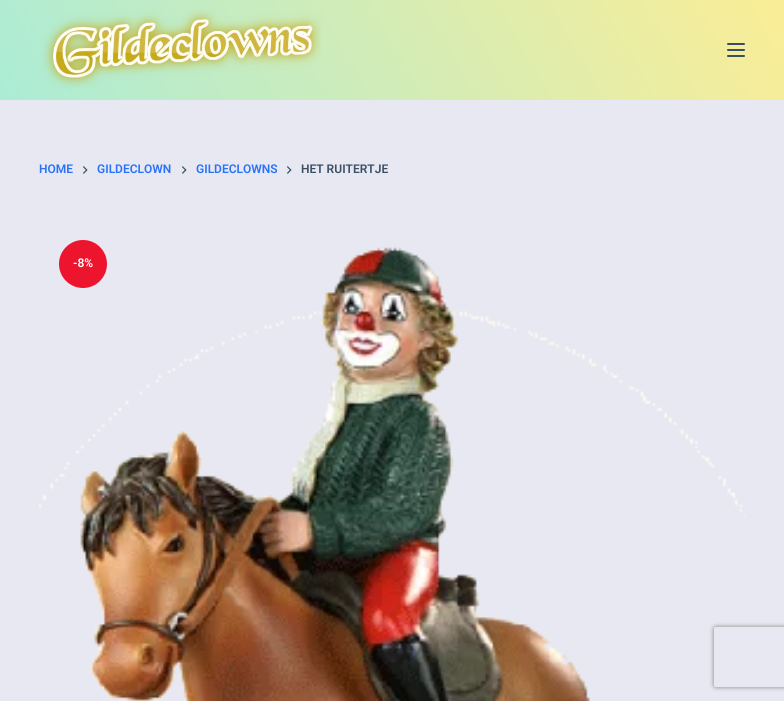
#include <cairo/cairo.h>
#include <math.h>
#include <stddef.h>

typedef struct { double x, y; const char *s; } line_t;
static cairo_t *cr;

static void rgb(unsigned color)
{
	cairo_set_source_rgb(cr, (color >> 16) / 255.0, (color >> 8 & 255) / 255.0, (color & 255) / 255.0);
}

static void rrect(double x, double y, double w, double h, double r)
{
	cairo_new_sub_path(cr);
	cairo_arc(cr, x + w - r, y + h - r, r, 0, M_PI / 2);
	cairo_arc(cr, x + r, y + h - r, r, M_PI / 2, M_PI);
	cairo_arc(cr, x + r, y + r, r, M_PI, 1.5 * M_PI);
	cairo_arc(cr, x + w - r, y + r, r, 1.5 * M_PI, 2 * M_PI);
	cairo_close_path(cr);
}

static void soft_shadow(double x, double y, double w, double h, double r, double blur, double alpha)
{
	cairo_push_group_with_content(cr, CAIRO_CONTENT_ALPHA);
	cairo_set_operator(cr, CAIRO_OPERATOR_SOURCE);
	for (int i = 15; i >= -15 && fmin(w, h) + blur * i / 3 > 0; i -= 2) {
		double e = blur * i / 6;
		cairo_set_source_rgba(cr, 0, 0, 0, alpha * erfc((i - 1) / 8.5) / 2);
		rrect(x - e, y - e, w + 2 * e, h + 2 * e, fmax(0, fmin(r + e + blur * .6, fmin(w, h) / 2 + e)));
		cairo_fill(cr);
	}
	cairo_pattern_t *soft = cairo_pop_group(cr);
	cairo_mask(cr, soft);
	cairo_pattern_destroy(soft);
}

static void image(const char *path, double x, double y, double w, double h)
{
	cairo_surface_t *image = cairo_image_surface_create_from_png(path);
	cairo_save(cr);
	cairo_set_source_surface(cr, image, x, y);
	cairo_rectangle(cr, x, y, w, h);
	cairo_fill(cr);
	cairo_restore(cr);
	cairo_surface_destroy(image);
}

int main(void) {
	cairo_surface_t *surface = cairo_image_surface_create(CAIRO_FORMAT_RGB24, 784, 701);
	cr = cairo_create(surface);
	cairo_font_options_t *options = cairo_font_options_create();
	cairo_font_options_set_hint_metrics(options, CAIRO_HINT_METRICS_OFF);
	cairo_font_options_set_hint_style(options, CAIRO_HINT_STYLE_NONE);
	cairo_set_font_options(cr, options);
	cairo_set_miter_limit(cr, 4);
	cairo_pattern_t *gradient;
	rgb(0xe8e8f2);
	cairo_paint(cr);
	gradient = cairo_pattern_create_linear(76, 232, 708, -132);
	cairo_pattern_add_color_stop_rgba(gradient, 0, 0.671, 0.925, 0.839, 1);
	cairo_pattern_add_color_stop_rgba(gradient, 1, 0.984, 0.929, 0.588, 1);
	cairo_set_source(cr, gradient);
	cairo_pattern_destroy(gradient);
	cairo_rectangle(cr, 0, 0, 784, 100);
	cairo_fill(cr);
	image("img/1.png", 42, 9, 280, 80);
	rgb(0x3a4f66);
	rrect(727, 43, 18, 2, 1);
	cairo_fill(cr);
	rrect(727, 49, 18, 2, 1);
	cairo_fill(cr);
	rrect(727, 55, 18, 2, 1);
	cairo_fill(cr);
	image("img/2.png", 83, 166, 5, 8);
	image("img/2.png", 182, 166, 5, 8);
	image("img/2.png", 287, 166, 5, 8);
	image("img/3.png", 39, 247, 706, 454);
	rgb(0xed142d);
	cairo_arc(cr, 83, 264, 24, 0, 2 * M_PI);
	cairo_fill(cr);
	cairo_save(cr);
	cairo_set_fill_rule(cr, CAIRO_FILL_RULE_EVEN_ODD);
	cairo_new_path(cr);
	cairo_move_to(cr, 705, 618);
	cairo_line_to(cr, 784, 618);
	cairo_line_to(cr, 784, 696);
	cairo_line_to(cr, 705, 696);
	cairo_close_path(cr);
	cairo_move_to(cr, 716, 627);
	cairo_line_to(cr, 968, 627);
	cairo_curve_to(cr, 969, 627, 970, 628, 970, 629);
	cairo_line_to(cr, 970, 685);
	cairo_curve_to(cr, 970, 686, 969, 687, 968, 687);
	cairo_line_to(cr, 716, 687);
	cairo_curve_to(cr, 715, 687, 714, 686, 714, 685);
	cairo_line_to(cr, 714, 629);
	cairo_curve_to(cr, 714, 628, 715, 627, 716, 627);
	cairo_close_path(cr);
	cairo_clip(cr);
	rgb(0x808080);
	soft_shadow(714, 627, 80, 60, 2, 2.5, 1);
	cairo_restore(cr);
	cairo_select_font_face(cr, "Roboto SemiBold", CAIRO_FONT_SLANT_NORMAL, CAIRO_FONT_WEIGHT_NORMAL);
	cairo_set_font_size(cr, 12);
	rgb(0x2872fa);
	{
		static const line_t items[] = {
			{39, 173, "HOME"},
			{97, 173, "GILDECLOWN"},
			{196, 173, "GILDECLOWNS"},
		};
		for (size_t i = 0; i < sizeof items / sizeof *items; i++) {
			cairo_move_to(cr, items[i].x, items[i].y);
			cairo_show_text(cr, items[i].s);
		}
	}
	rgb(0x3a4f66);
	cairo_move_to(cr, 301, 173);
	cairo_show_text(cr, "HET RUITERTJE");
	rgb(0xffffff);
	cairo_move_to(cr, 73, 267);
	cairo_show_text(cr, "-8%");
	cairo_surface_write_to_png(surface, "page.png");
	cairo_font_options_destroy(options);
	cairo_destroy(cr);
	cairo_surface_destroy(surface);
	return 0;
}
